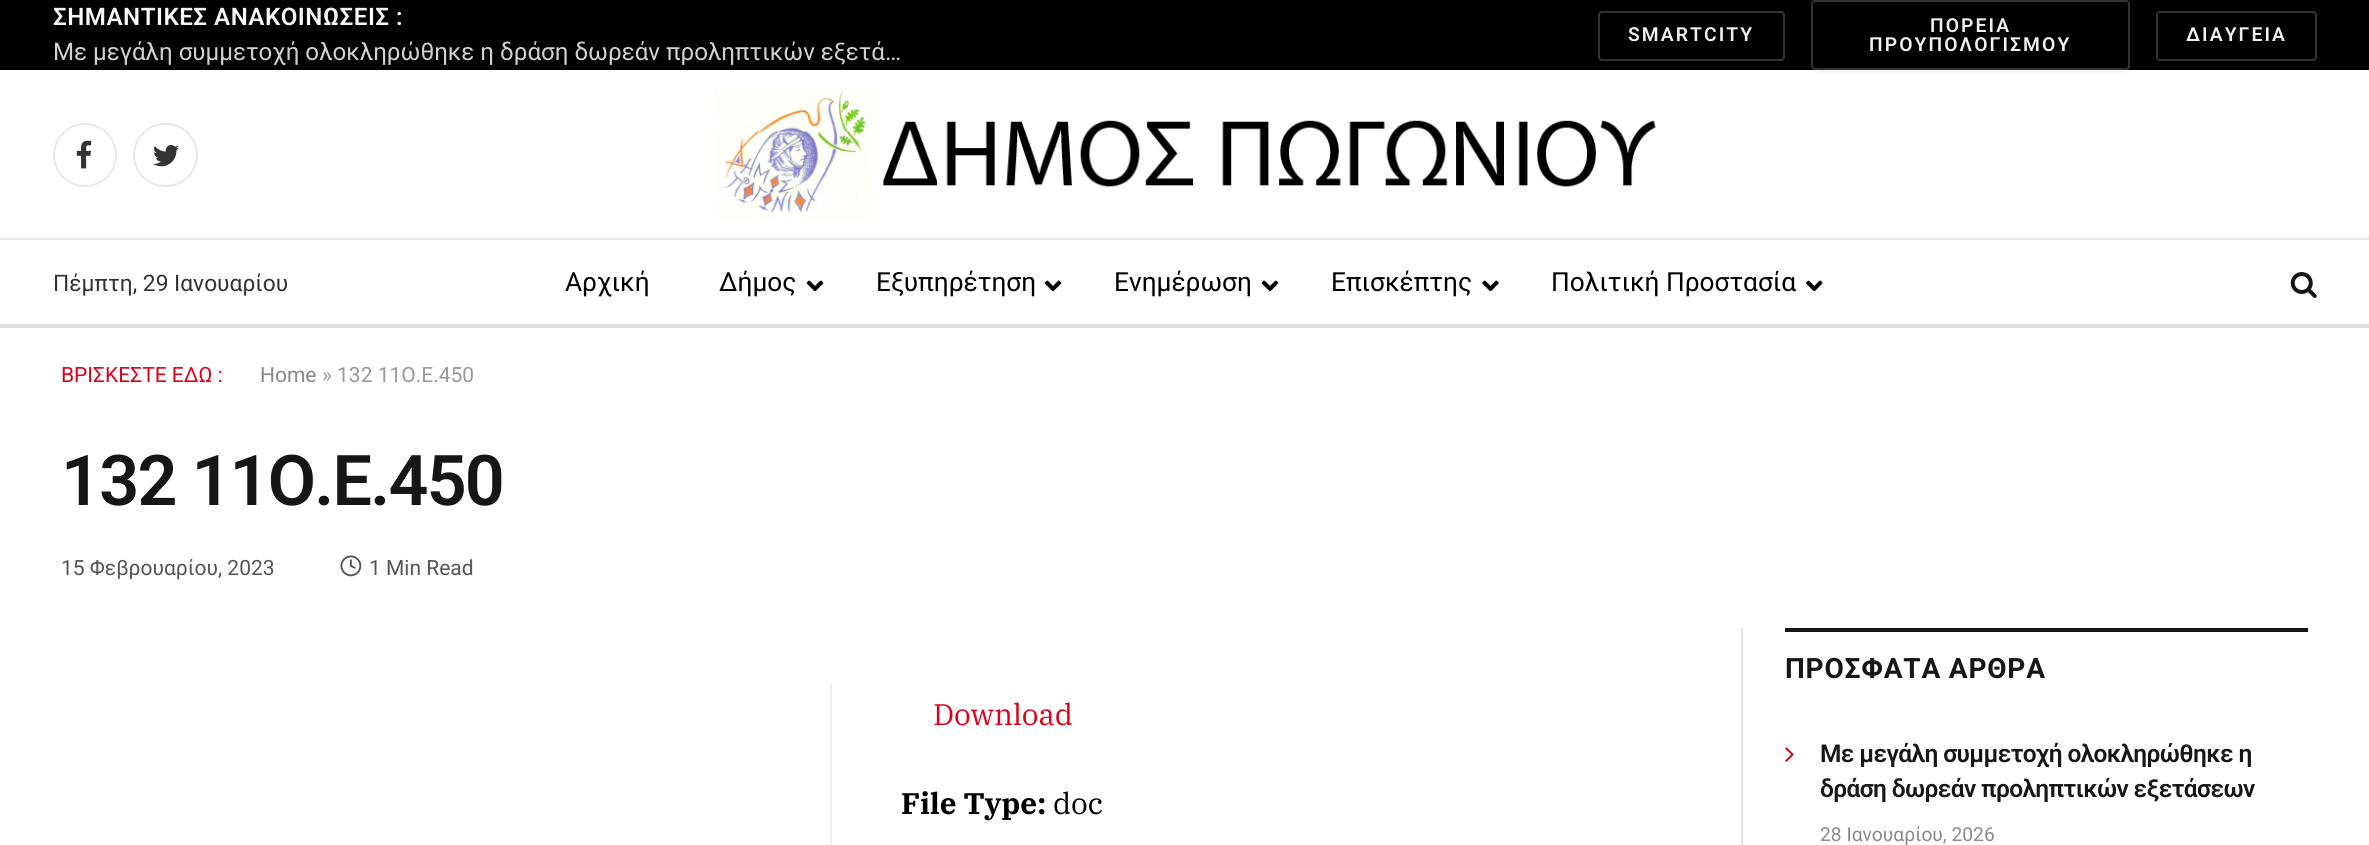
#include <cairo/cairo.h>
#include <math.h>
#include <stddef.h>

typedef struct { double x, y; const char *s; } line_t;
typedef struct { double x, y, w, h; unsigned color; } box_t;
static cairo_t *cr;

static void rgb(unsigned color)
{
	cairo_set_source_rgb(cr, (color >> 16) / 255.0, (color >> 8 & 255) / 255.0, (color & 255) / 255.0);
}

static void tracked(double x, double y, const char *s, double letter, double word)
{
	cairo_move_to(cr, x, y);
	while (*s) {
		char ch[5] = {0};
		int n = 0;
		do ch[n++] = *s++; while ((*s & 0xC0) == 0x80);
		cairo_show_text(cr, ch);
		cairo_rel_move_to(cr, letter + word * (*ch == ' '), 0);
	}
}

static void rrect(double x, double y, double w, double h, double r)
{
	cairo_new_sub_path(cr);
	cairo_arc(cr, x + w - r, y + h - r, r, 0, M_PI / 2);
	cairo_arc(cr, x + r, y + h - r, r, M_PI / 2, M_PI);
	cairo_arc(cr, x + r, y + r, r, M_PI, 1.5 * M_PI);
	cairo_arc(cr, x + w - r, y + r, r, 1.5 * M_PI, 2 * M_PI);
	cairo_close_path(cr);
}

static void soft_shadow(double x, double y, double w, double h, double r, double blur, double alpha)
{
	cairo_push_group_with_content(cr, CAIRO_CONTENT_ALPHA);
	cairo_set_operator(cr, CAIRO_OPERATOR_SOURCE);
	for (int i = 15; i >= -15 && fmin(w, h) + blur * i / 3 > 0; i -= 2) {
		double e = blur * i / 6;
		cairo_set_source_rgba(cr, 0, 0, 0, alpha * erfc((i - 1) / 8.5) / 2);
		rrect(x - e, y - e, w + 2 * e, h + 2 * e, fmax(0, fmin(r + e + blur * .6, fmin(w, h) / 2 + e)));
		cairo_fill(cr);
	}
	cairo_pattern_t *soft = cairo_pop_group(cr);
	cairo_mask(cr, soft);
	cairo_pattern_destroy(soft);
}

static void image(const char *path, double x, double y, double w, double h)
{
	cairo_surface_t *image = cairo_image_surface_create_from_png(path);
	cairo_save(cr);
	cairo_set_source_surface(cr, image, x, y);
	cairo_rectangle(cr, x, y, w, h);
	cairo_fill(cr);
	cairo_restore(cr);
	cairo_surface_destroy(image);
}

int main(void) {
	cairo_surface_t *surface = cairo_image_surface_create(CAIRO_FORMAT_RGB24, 2369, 845);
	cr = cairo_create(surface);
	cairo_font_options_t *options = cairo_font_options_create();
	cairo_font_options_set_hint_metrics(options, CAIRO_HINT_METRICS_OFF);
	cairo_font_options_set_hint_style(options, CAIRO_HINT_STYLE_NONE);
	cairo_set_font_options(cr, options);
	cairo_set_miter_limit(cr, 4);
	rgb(0xffffff);
	cairo_paint(cr);
	rgb(0x000000);
	cairo_rectangle(cr, 0, 0, 2369, 70);
	cairo_fill(cr);
	rrect(1599, 12, 185, 48, 3);
	rgb(0x333333);
	cairo_stroke(cr);
	cairo_save(cr);
	cairo_rectangle(cr, 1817, 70, 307, 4);
	cairo_clip(cr);
	rgb(0x000000);
	soft_shadow(1818, 11, 305, 56, 0, 6, 0.16);
	cairo_restore(cr);
	rrect(1812, 1, 317, 68, 3);
	cairo_stroke(cr);
	rrect(2157, 12, 159, 48, 3);
	cairo_stroke(cr);
	cairo_arc(cr, 85, 155, 31, 0, 2 * M_PI);
	rgb(0xe8e8e8);
	cairo_stroke(cr);
	image("img/1.png", 76, 140, 16, 29);
	rrect(134, 124, 63, 62, 31);
	cairo_stroke(cr);
	image("img/2.png", 153, 145, 26, 22);
	image("img/3.png", 714, 87, 942, 134);
	cairo_rectangle(cr, 0, 238, 2369, 2);
	cairo_fill(cr);
	rgb(0xdedede);
	cairo_rectangle(cr, 0, 324, 2369, 4);
	cairo_fill(cr);
	image("img/4.png", 806, 280, 18, 12);
	image("img/4.png", 1044, 280, 18, 12);
	image("img/4.png", 1261, 280, 18, 12);
	image("img/5.png", 1482, 280, 17, 12);
	image("img/6.png", 1806, 280, 17, 12);
	image("img/7.png", 2290, 272, 27, 26);
	image("img/8.png", 340, 555, 22, 22);
	{
		static const box_t items[] = {
			{830, 684, 2, 161, 0xeeeeee},
			{1741, 628, 2, 217, 0xe2e2e2},
			{1785, 628, 523, 4, 0x161616},
		};
		for (size_t i = 0; i < sizeof items / sizeof *items; i++) {
			rgb(items[i].color);
			cairo_rectangle(cr, items[i].x, items[i].y, items[i].w, items[i].h);
			cairo_fill(cr);
		}
	}
	image("img/9.png", 1785, 747, 9, 15);
	cairo_select_font_face(cr, "Roboto SemiBold", CAIRO_FONT_SLANT_NORMAL, CAIRO_FONT_WEIGHT_NORMAL);
	cairo_set_font_size(cr, 24.15);
	rgb(0xf7f7f7);
	tracked(53, 25, "ΣΗΜΑΝΤΙΚΕΣ ΑΝΑΚΟΙΝΩΣΕΙΣ :", 0.5, 0);
	cairo_select_font_face(cr, "Roboto", CAIRO_FONT_SLANT_NORMAL, CAIRO_FONT_WEIGHT_NORMAL);
	rgb(0xd1d1d1);
	cairo_move_to(cr, 53, 60);
	cairo_show_text(cr, "Με μεγάλη συμμετοχή ολοκληρώθηκε η δράση δωρεάν προληπτικών εξετά…");
	cairo_select_font_face(cr, "Roboto SemiBold", CAIRO_FONT_SLANT_NORMAL, CAIRO_FONT_WEIGHT_NORMAL);
	cairo_set_font_size(cr, 19.25);
	rgb(0xf0f0f0);
	{
		static const line_t items[] = {
			{1628, 41, "SMARTCITY"},
			{1930, 32, "ΠΟΡΕΙΑ"},
			{1869, 51, "ΠΡΟΥΠΟΛΟΓΙΣΜΟΥ"},
			{2186, 41, "ΔΙΑΥΓΕΙΑ"},
		};
		for (size_t i = 0; i < sizeof items / sizeof *items; i++) {
			tracked(items[i].x, items[i].y, items[i].s, 2.1, 0);
		}
	}
	cairo_select_font_face(cr, "Roboto", CAIRO_FONT_SLANT_NORMAL, CAIRO_FONT_WEIGHT_NORMAL);
	cairo_set_font_size(cr, 22.75);
	rgb(0x333333);
	cairo_move_to(cr, 53, 291);
	cairo_show_text(cr, "Πέμπτη, 29 Ιανουαρίου");
	cairo_set_font_size(cr, 26.25);
	rgb(0x000000);
	{
		static const line_t items[] = {
			{565, 291, "Αρχική"},
			{719, 291, "Δήμος"},
			{876, 291, "Εξυπηρέτηση"},
			{1114, 291, "Ενημέρωση"},
			{1331, 291, "Επισκέπτης"},
			{1551, 291, "Πολιτική Προστασία"},
		};
		for (size_t i = 0; i < sizeof items / sizeof *items; i++) {
			cairo_move_to(cr, items[i].x, items[i].y);
			cairo_show_text(cr, items[i].s);
		}
	}
	cairo_set_font_size(cr, 21);
	rgb(0xdd0017);
	cairo_move_to(cr, 61, 382);
	cairo_show_text(cr, "ΒΡΙΣΚΕΣΤΕ ΕΔΩ :");
	rgb(0x8a8a8a);
	cairo_move_to(cr, 260, 382);
	cairo_show_text(cr, "Home");
	rgb(0x999999);
	cairo_move_to(cr, 322, 382);
	cairo_show_text(cr, "» 132 11Ο.Ε.450");
	cairo_select_font_face(cr, "Roboto SemiBold", CAIRO_FONT_SLANT_NORMAL, CAIRO_FONT_WEIGHT_NORMAL);
	cairo_set_font_size(cr, 70);
	rgb(0x161616);
	tracked(61, 505, "132 11Ο.Ε.450", -1.75, 0);
	cairo_select_font_face(cr, "Roboto", CAIRO_FONT_SLANT_NORMAL, CAIRO_FONT_WEIGHT_NORMAL);
	cairo_set_font_size(cr, 21);
	rgb(0x565656);
	cairo_move_to(cr, 61, 575);
	cairo_show_text(cr, "15 Φεβρουαρίου, 2023");
	cairo_move_to(cr, 369, 575);
	cairo_show_text(cr, "1 Min Read");
	cairo_select_font_face(cr, "IBM Plex Serif", CAIRO_FONT_SLANT_NORMAL, CAIRO_FONT_WEIGHT_NORMAL);
	cairo_set_font_size(cr, 29.75);
	rgb(0xdd0017);
	cairo_move_to(cr, 933, 725);
	cairo_show_text(cr, "Download");
	cairo_select_font_face(cr, "IBM Plex Serif", CAIRO_FONT_SLANT_NORMAL, CAIRO_FONT_WEIGHT_BOLD);
	rgb(0x000000);
	cairo_move_to(cr, 901, 814);
	cairo_show_text(cr, "File Type:");
	cairo_select_font_face(cr, "IBM Plex Serif", CAIRO_FONT_SLANT_NORMAL, CAIRO_FONT_WEIGHT_NORMAL);
	cairo_move_to(cr, 1053, 814);
	cairo_show_text(cr, "doc");
	cairo_select_font_face(cr, "Roboto", CAIRO_FONT_SLANT_NORMAL, CAIRO_FONT_WEIGHT_BOLD);
	cairo_set_font_size(cr, 28);
	rgb(0x161616);
	tracked(1785, 678, "ΠΡΟΣΦΑΤΑ ΑΡΘΡΑ", 0.8, 0);
	cairo_select_font_face(cr, "Roboto SemiBold", CAIRO_FONT_SLANT_NORMAL, CAIRO_FONT_WEIGHT_NORMAL);
	cairo_set_font_size(cr, 24.5);
	tracked(1820, 762, "Με μεγάλη συμμετοχή ολοκληρώθηκε η", -0.6, 0);
	tracked(1820, 797, "δράση δωρεάν προληπτικών εξετάσεων", -0.6, 0);
	cairo_select_font_face(cr, "Roboto", CAIRO_FONT_SLANT_NORMAL, CAIRO_FONT_WEIGHT_NORMAL);
	cairo_set_font_size(cr, 19.25);
	rgb(0x8a8a8a);
	cairo_move_to(cr, 1820, 841);
	cairo_show_text(cr, "28 Ιανουαρίου, 2026");
	cairo_surface_write_to_png(surface, "page.png");
	cairo_font_options_destroy(options);
	cairo_destroy(cr);
	cairo_surface_destroy(surface);
	return 0;
}
